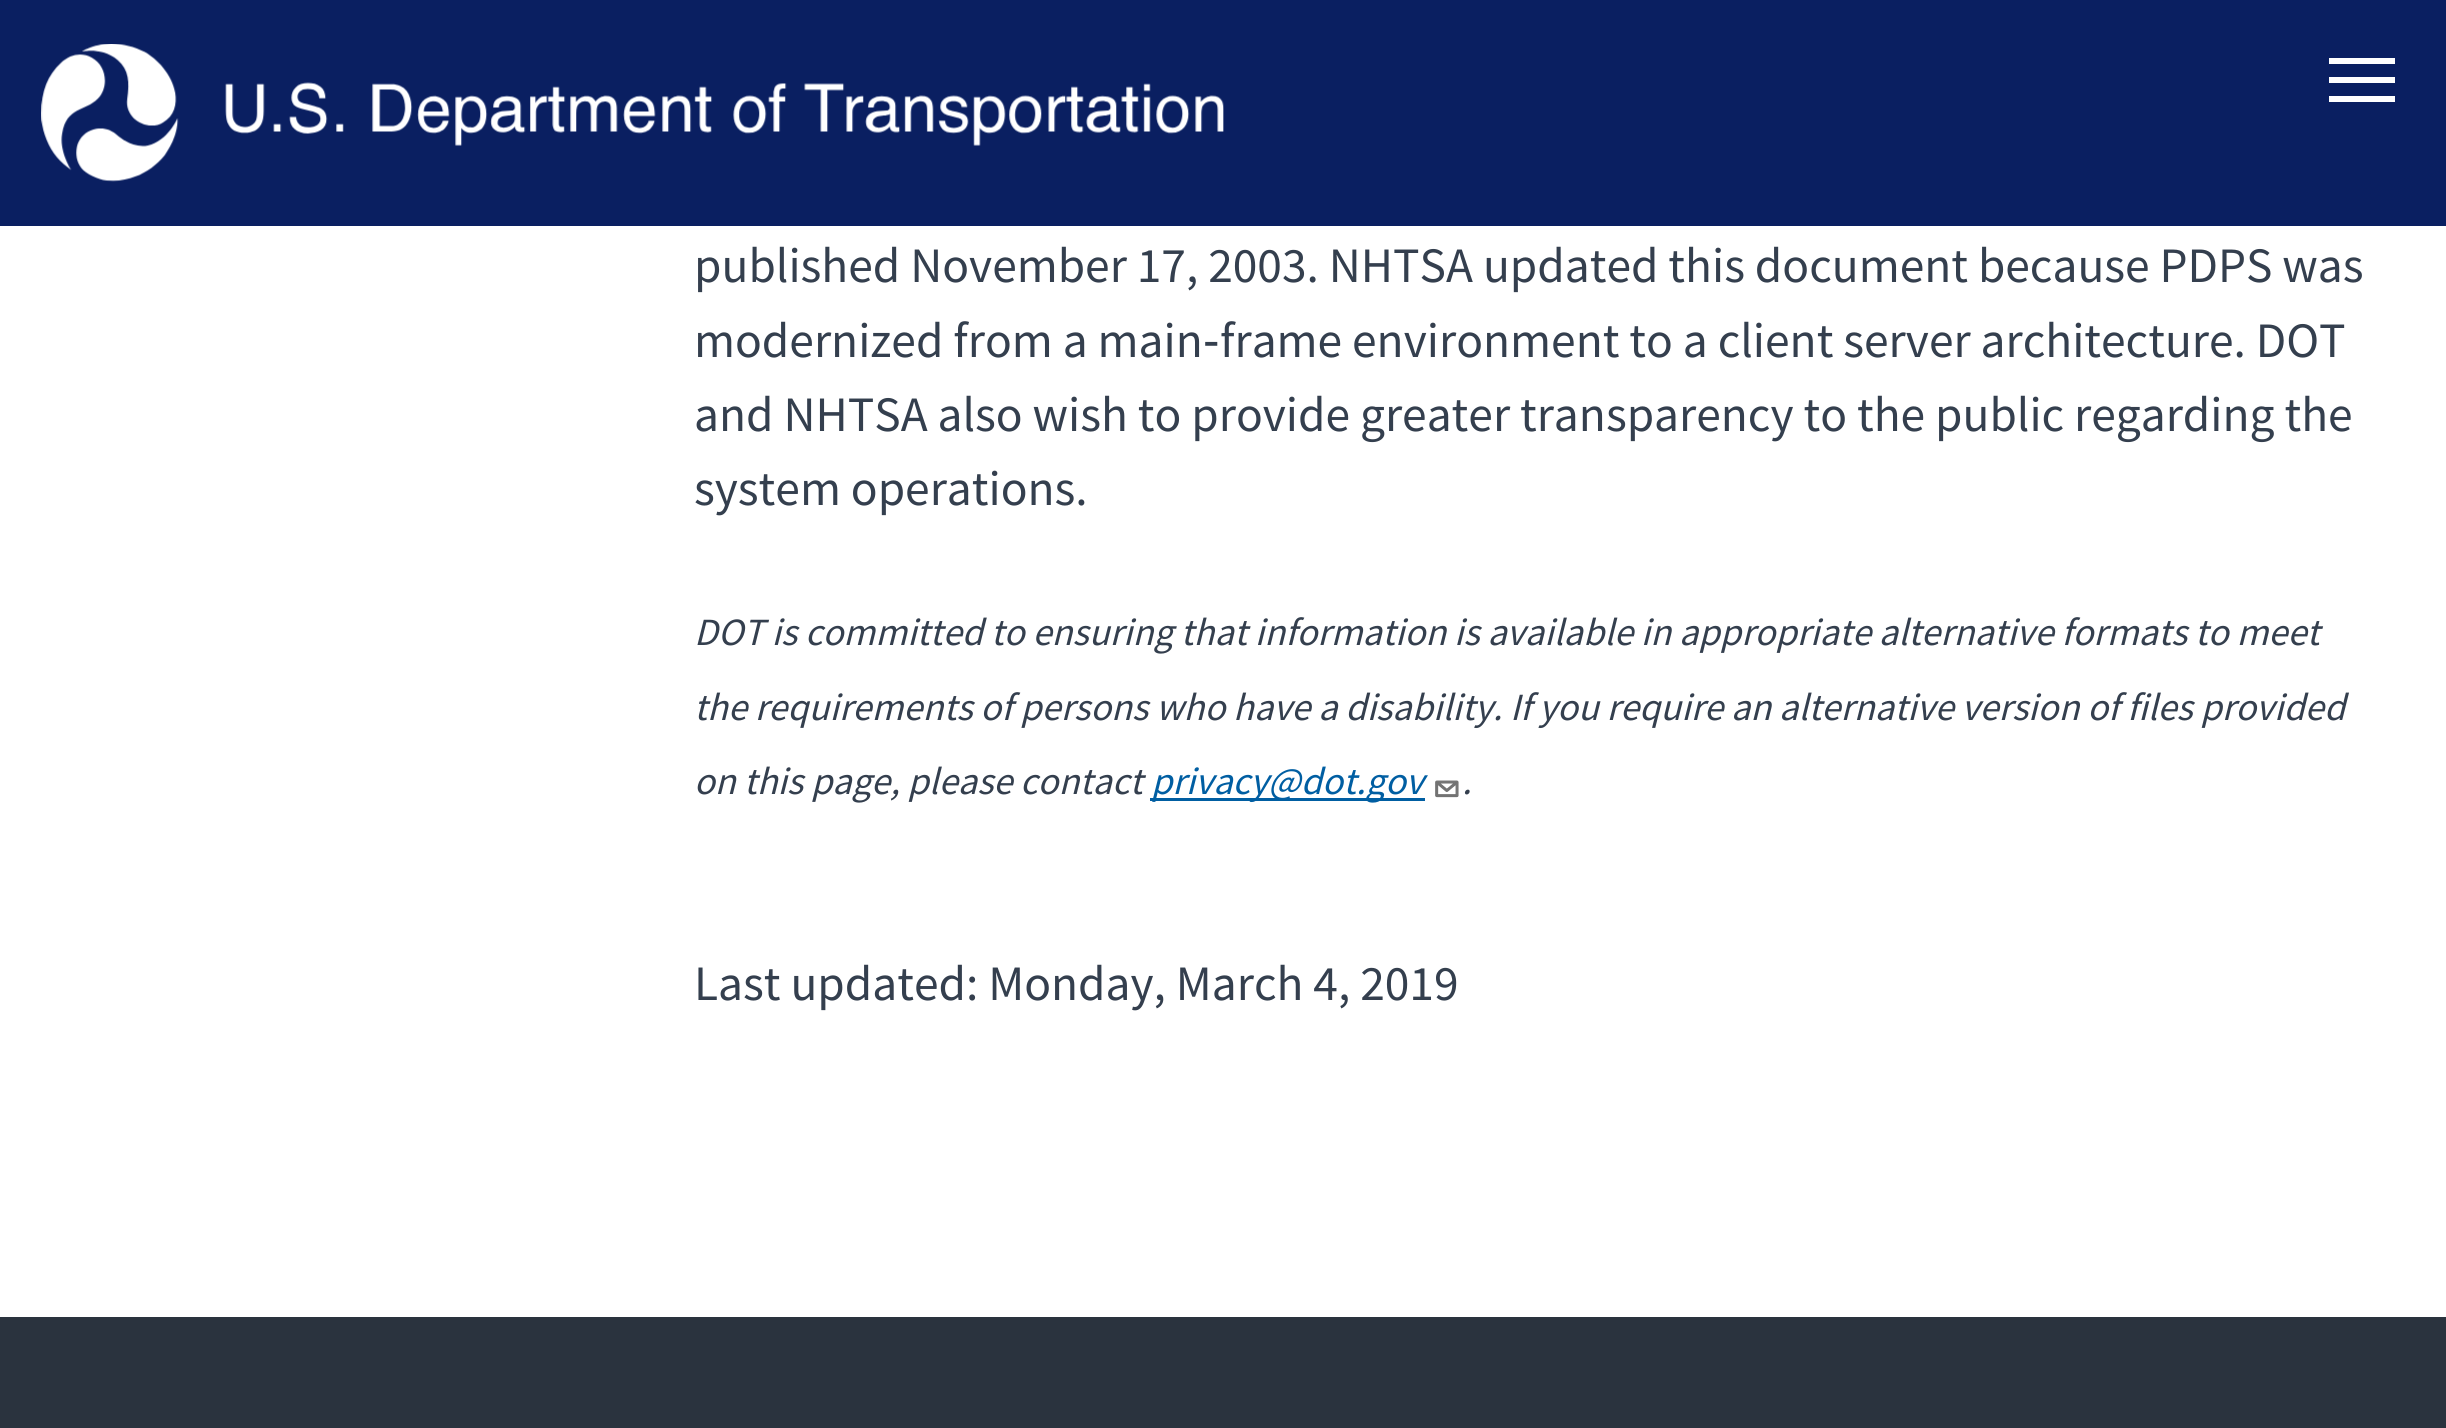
#include <cairo/cairo.h>
#include <math.h>
#include <stddef.h>

typedef struct { double x, y; const char *s; } line_t;
typedef struct { double x, y, w, h; unsigned color; } box_t;
static cairo_t *cr;

static void rgb(unsigned color)
{
	cairo_set_source_rgb(cr, (color >> 16) / 255.0, (color >> 8 & 255) / 255.0, (color & 255) / 255.0);
}

static void image(const char *path, double x, double y, double w, double h)
{
	cairo_surface_t *image = cairo_image_surface_create_from_png(path);
	cairo_save(cr);
	cairo_set_source_surface(cr, image, x, y);
	cairo_rectangle(cr, x, y, w, h);
	cairo_fill(cr);
	cairo_restore(cr);
	cairo_surface_destroy(image);
}

int main(void) {
	cairo_surface_t *surface = cairo_image_surface_create(CAIRO_FORMAT_RGB24, 2446, 1428);
	cr = cairo_create(surface);
	cairo_font_options_t *options = cairo_font_options_create();
	cairo_font_options_set_hint_metrics(options, CAIRO_HINT_METRICS_OFF);
	cairo_font_options_set_hint_style(options, CAIRO_HINT_STYLE_NONE);
	cairo_set_font_options(cr, options);
	cairo_set_miter_limit(cr, 4);
	rgb(0x2a333e);
	cairo_paint(cr);
	rgb(0x0a1f61);
	cairo_rectangle(cr, 0, 0, 2446, 226);
	cairo_fill(cr);
	image("img/1.png", 41, 44, 1183, 138);
	{
		static const box_t items[] = {
			{2329, 58, 66, 6, 0xffffff},
			{2329, 77, 66, 6, 0xffffff},
			{2329, 96, 66, 6, 0xffffff},
			{0, 226, 2446, 1091, 0xffffff},
			{1150, 798, 275, 3, 0x005ea2},
		};
		for (size_t i = 0; i < sizeof items / sizeof *items; i++) {
			rgb(items[i].color);
			cairo_rectangle(cr, items[i].x, items[i].y, items[i].w, items[i].h);
			cairo_fill(cr);
		}
	}
	image("img/2.png", 1435, 780, 24, 18);
	cairo_select_font_face(cr, "Source Sans Pro", CAIRO_FONT_SLANT_NORMAL, CAIRO_FONT_WEIGHT_NORMAL);
	cairo_set_font_size(cr, 49.5);
	rgb(0x343f4e);
	cairo_move_to(cr, 694, 282);
	cairo_show_text(cr, "published November 17, 2003. NHTSA updated this document because PDPS was");
	cairo_move_to(cr, 694, 357);
	cairo_show_text(cr, "modernized from a main");
	cairo_select_font_face(cr, "Liberation Sans", CAIRO_FONT_SLANT_NORMAL, CAIRO_FONT_WEIGHT_NORMAL);
	cairo_move_to(cr, 1203, 357);
	cairo_show_text(cr, "‐");
	cairo_select_font_face(cr, "Source Sans Pro", CAIRO_FONT_SLANT_NORMAL, CAIRO_FONT_WEIGHT_NORMAL);
	{
		static const line_t items[] = {
			{1220, 357, "frame environment to a client server architecture. DOT"},
			{694, 431, "and NHTSA also wish to provide greater transparency to the public regarding the"},
			{694, 505, "system operations."},
		};
		for (size_t i = 0; i < sizeof items / sizeof *items; i++) {
			cairo_move_to(cr, items[i].x, items[i].y);
			cairo_show_text(cr, items[i].s);
		}
	}
	cairo_select_font_face(cr, "Source Sans Pro", CAIRO_FONT_SLANT_ITALIC, CAIRO_FONT_WEIGHT_NORMAL);
	cairo_set_font_size(cr, 38.5);
	{
		static const line_t items[] = {
			{694, 645, "DOT is committed to ensuring that information is available in appropriate alternative formats to meet"},
			{694, 720, "the requirements of persons who have a disability. If you require an alternative version of files provided"},
			{694, 794, "on this page, please contact"},
		};
		for (size_t i = 0; i < sizeof items / sizeof *items; i++) {
			cairo_move_to(cr, items[i].x, items[i].y);
			cairo_show_text(cr, items[i].s);
		}
	}
	rgb(0x005ea2);
	cairo_move_to(cr, 1151, 794);
	cairo_show_text(cr, "privacy@dot.gov");
	rgb(0x343f4e);
	cairo_move_to(cr, 1462, 794);
	cairo_show_text(cr, ".");
	cairo_select_font_face(cr, "Source Sans Pro", CAIRO_FONT_SLANT_NORMAL, CAIRO_FONT_WEIGHT_NORMAL);
	cairo_set_font_size(cr, 49.5);
	cairo_move_to(cr, 694, 1000);
	cairo_show_text(cr, "Last updated: Monday, March 4, 2019");
	cairo_surface_write_to_png(surface, "page.png");
	cairo_font_options_destroy(options);
	cairo_destroy(cr);
	cairo_surface_destroy(surface);
	return 0;
}
